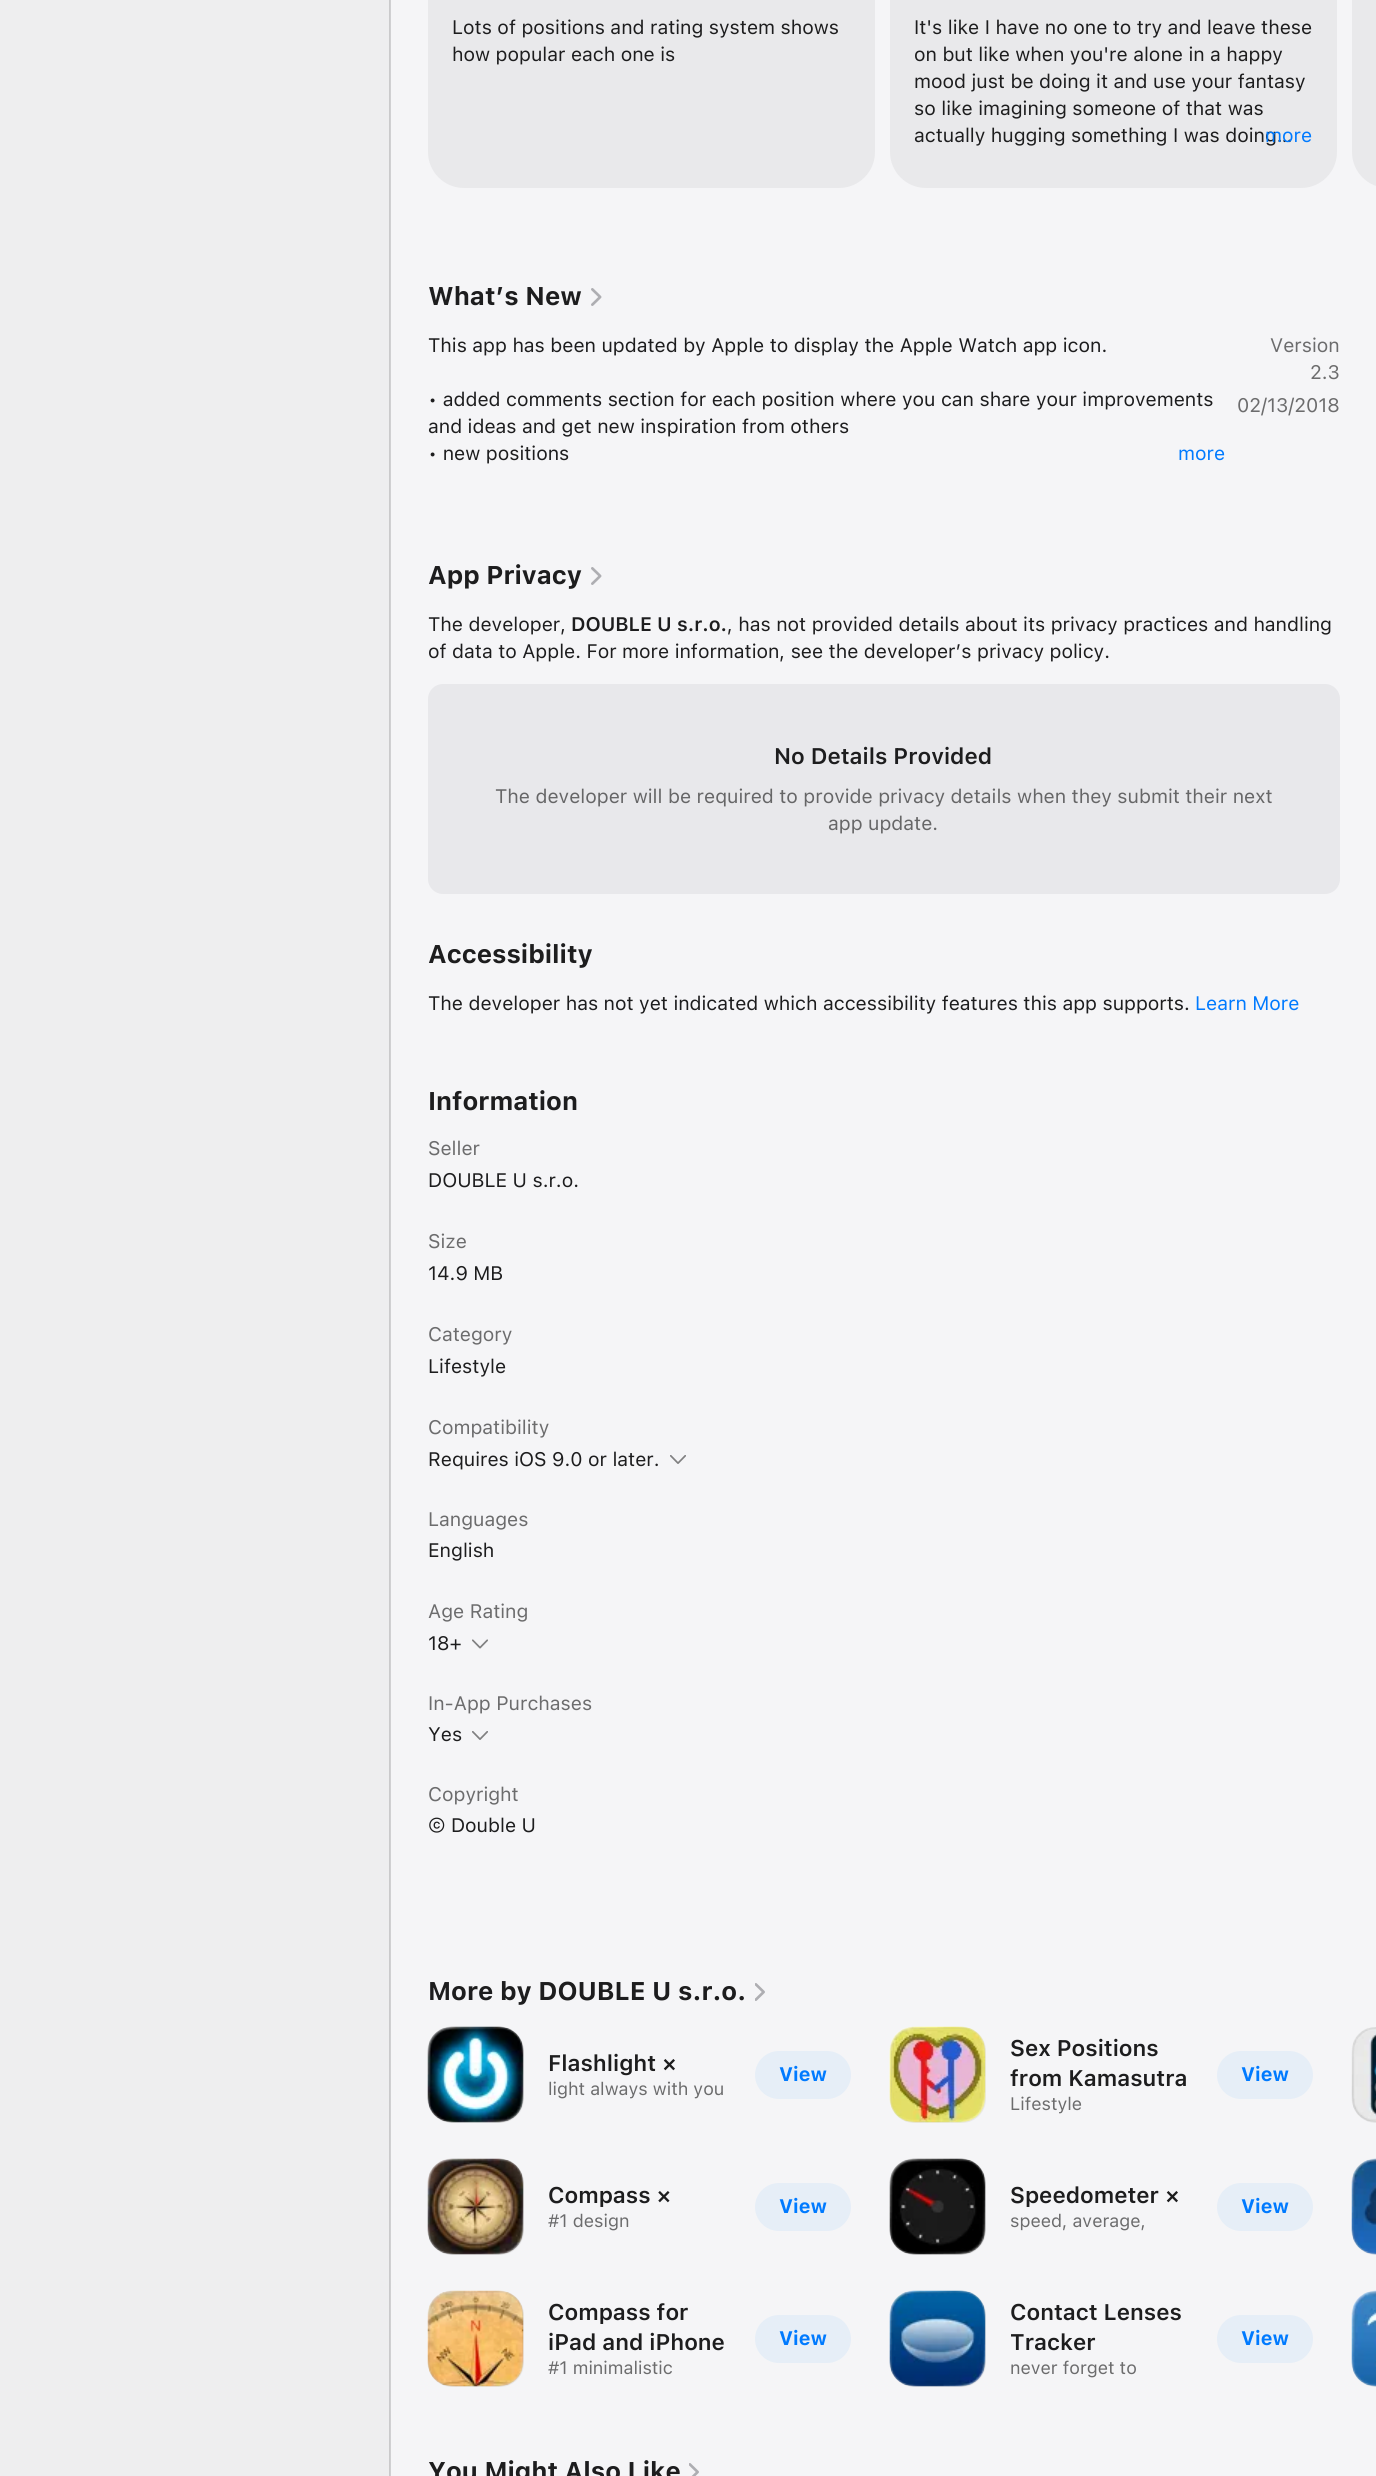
#include <cairo/cairo.h>
#include <math.h>
#include <stddef.h>

typedef struct { double x, y; const char *s; } line_t;
typedef struct { double x, y, w, h; unsigned color; } box_t;
static cairo_t *cr;

static void rgb(unsigned color)
{
	cairo_set_source_rgb(cr, (color >> 16) / 255.0, (color >> 8 & 255) / 255.0, (color & 255) / 255.0);
}

static void rrect(double x, double y, double w, double h, double r)
{
	cairo_new_sub_path(cr);
	cairo_arc(cr, x + w - r, y + h - r, r, 0, M_PI / 2);
	cairo_arc(cr, x + r, y + h - r, r, M_PI / 2, M_PI);
	cairo_arc(cr, x + r, y + r, r, M_PI, 1.5 * M_PI);
	cairo_arc(cr, x + w - r, y + r, r, 1.5 * M_PI, 2 * M_PI);
	cairo_close_path(cr);
}

static void image(const char *path, double x, double y, double w, double h)
{
	cairo_surface_t *image = cairo_image_surface_create_from_png(path);
	cairo_save(cr);
	cairo_set_source_surface(cr, image, x, y);
	cairo_rectangle(cr, x, y, w, h);
	cairo_fill(cr);
	cairo_restore(cr);
	cairo_surface_destroy(image);
}

int main(void) {
	cairo_surface_t *surface = cairo_image_surface_create(CAIRO_FORMAT_RGB24, 1376, 2476);
	cr = cairo_create(surface);
	cairo_font_options_t *options = cairo_font_options_create();
	cairo_font_options_set_hint_metrics(options, CAIRO_HINT_METRICS_OFF);
	cairo_font_options_set_hint_style(options, CAIRO_HINT_STYLE_NONE);
	cairo_set_font_options(cr, options);
	cairo_set_miter_limit(cr, 4);
	rgb(0xf5f5f7);
	cairo_paint(cr);
	{
		static const box_t items[] = {
			{390, 0, 1, 2476, 0xd0d0d2},
			{0, 0, 389, 2476, 0xeeeeef},
			{389, 0, 1, 2476, 0xcacacb},
		};
		for (size_t i = 0; i < sizeof items / sizeof *items; i++) {
			rgb(items[i].color);
			cairo_rectangle(cr, items[i].x, items[i].y, items[i].w, items[i].h);
			cairo_fill(cr);
		}
	}
	rgb(0xe9e9eb);
	rrect(428, -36, 447, 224, 36);
	cairo_fill(cr);
	rrect(890, -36, 447, 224, 36);
	cairo_fill(cr);
	cairo_new_path(cr);
	cairo_move_to(cr, 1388, -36);
	cairo_line_to(cr, 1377, -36);
	cairo_line_to(cr, 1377, 188);
	cairo_line_to(cr, 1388, 188);
	cairo_curve_to(cr, 1368, 188, 1352, 172, 1352, 152);
	cairo_line_to(cr, 1352, 0);
	cairo_curve_to(cr, 1352, -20, 1368, -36, 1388, -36);
	cairo_close_path(cr);
	cairo_fill(cr);
	image("img/1.png", 591, 288, 11, 18);
	image("img/1.png", 591, 567, 11, 18);
	rgb(0xe8e8eb);
	rrect(428, 684, 912, 210, 15);
	cairo_fill(cr);
	image("img/2.png", 670, 1455, 16, 9);
	image("img/3.png", 472, 1639, 16, 10);
	image("img/2.png", 472, 1731, 16, 9);
	image("img/4.png", 755, 1983, 10, 18);
	image("img/5.png", 427, 2026, 97, 97);
	rrect(429, 2028, 94, 94, 23);
	cairo_set_source_rgba(cr, 0.502, 0.502, 0.502, 0.1);
	cairo_stroke(cr);
	rgb(0xe6eef7);
	rrect(755, 2051, 96, 48, 24);
	cairo_fill(cr);
	image("img/6.png", 889, 2026, 97, 97);
	rrect(891, 2028, 94, 94, 23);
	cairo_set_source_rgba(cr, 0.502, 0.502, 0.502, 0.1);
	cairo_stroke(cr);
	rgb(0xe6eef7);
	rrect(1217, 2051, 96, 48, 24);
	cairo_fill(cr);
	image("img/7.png", 1351, 2027, 25, 96);
	rrect(1353, 2028, 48, 94, 23);
	cairo_set_source_rgba(cr, 0.502, 0.502, 0.502, 0.1);
	cairo_stroke(cr);
	image("img/8.png", 427, 2158, 97, 97);
	rrect(429, 2160, 94, 94, 23);
	cairo_stroke(cr);
	rgb(0xe6eef7);
	rrect(755, 2183, 96, 48, 24);
	cairo_fill(cr);
	image("img/9.png", 889, 2158, 97, 97);
	rrect(891, 2160, 94, 94, 23);
	cairo_set_source_rgba(cr, 0.502, 0.502, 0.502, 0.1);
	cairo_stroke(cr);
	rgb(0xe6eef7);
	rrect(1217, 2183, 96, 48, 24);
	cairo_fill(cr);
	image("img/10.png", 1351, 2158, 25, 97);
	rrect(1353, 2160, 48, 94, 23);
	cairo_set_source_rgba(cr, 0.502, 0.502, 0.502, 0.1);
	cairo_stroke(cr);
	image("img/11.png", 427, 2290, 97, 97);
	rrect(429, 2292, 94, 94, 23);
	cairo_stroke(cr);
	rgb(0xe6eef7);
	rrect(755, 2315, 96, 48, 24);
	cairo_fill(cr);
	image("img/12.png", 889, 2290, 97, 97);
	rrect(891, 2292, 94, 94, 23);
	cairo_set_source_rgba(cr, 0.502, 0.502, 0.502, 0.1);
	cairo_stroke(cr);
	rgb(0xe6eef7);
	rrect(1217, 2315, 96, 48, 24);
	cairo_fill(cr);
	image("img/13.png", 1351, 2290, 25, 97);
	rrect(1353, 2292, 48, 94, 23);
	cairo_set_source_rgba(cr, 0.502, 0.502, 0.502, 0.1);
	cairo_stroke(cr);
	image("img/14.png", 689, 2463, 10, 13);
	cairo_select_font_face(cr, "SF", CAIRO_FONT_SLANT_NORMAL, CAIRO_FONT_WEIGHT_NORMAL);
	cairo_set_font_size(cr, 19.5);
	rgb(0x1d1d1e);
	{
		static const line_t items[] = {
			{452, 34, "Lots of positions and rating system shows"},
			{452, 61, "how popular each one is"},
			{914, 34, "It's like I have no one to try and leave these"},
			{914, 61, "on but like when you're alone in a happy"},
			{914, 88, "mood just be doing it and use your fantasy"},
			{914, 115, "so like imagining someone of that was"},
			{914, 142, "actually hugging something I was doing…"},
		};
		for (size_t i = 0; i < sizeof items / sizeof *items; i++) {
			cairo_move_to(cr, items[i].x, items[i].y);
			cairo_show_text(cr, items[i].s);
		}
	}
	rgb(0x007aff);
	cairo_move_to(cr, 1265, 142);
	cairo_show_text(cr, "more");
	cairo_select_font_face(cr, "SF", CAIRO_FONT_SLANT_NORMAL, CAIRO_FONT_WEIGHT_BOLD);
	cairo_set_font_size(cr, 25.5);
	rgb(0x1d1d1e);
	cairo_move_to(cr, 428, 305);
	cairo_show_text(cr, "What’s New");
	cairo_select_font_face(cr, "SF", CAIRO_FONT_SLANT_NORMAL, CAIRO_FONT_WEIGHT_NORMAL);
	cairo_set_font_size(cr, 19.5);
	{
		static const line_t items[] = {
			{428, 352, "This app has been updated by Apple to display the Apple Watch app icon."},
			{428, 406, "• added comments section for each position where you can share your improvements"},
			{428, 433, "and ideas and get new inspiration from others"},
			{428, 460, "• new positions"},
		};
		for (size_t i = 0; i < sizeof items / sizeof *items; i++) {
			cairo_move_to(cr, items[i].x, items[i].y);
			cairo_show_text(cr, items[i].s);
		}
	}
	rgb(0x007aff);
	cairo_move_to(cr, 1178, 460);
	cairo_show_text(cr, "more");
	rgb(0x6c6c6d);
	{
		static const line_t items[] = {
			{1270, 352, "Version"},
			{1310, 379, "2.3"},
			{1237, 412, "02/13/2018"},
		};
		for (size_t i = 0; i < sizeof items / sizeof *items; i++) {
			cairo_move_to(cr, items[i].x, items[i].y);
			cairo_show_text(cr, items[i].s);
		}
	}
	cairo_select_font_face(cr, "SF", CAIRO_FONT_SLANT_NORMAL, CAIRO_FONT_WEIGHT_BOLD);
	cairo_set_font_size(cr, 25.5);
	rgb(0x1d1d1e);
	cairo_move_to(cr, 428, 584);
	cairo_show_text(cr, "App Privacy");
	cairo_select_font_face(cr, "SF", CAIRO_FONT_SLANT_NORMAL, CAIRO_FONT_WEIGHT_NORMAL);
	cairo_set_font_size(cr, 19.5);
	cairo_move_to(cr, 428, 631);
	cairo_show_text(cr, "The developer,");
	cairo_select_font_face(cr, "SF SemiBold", CAIRO_FONT_SLANT_NORMAL, CAIRO_FONT_WEIGHT_NORMAL);
	cairo_move_to(cr, 571, 631);
	cairo_show_text(cr, "DOUBLE U s.r.o.");
	cairo_select_font_face(cr, "SF", CAIRO_FONT_SLANT_NORMAL, CAIRO_FONT_WEIGHT_NORMAL);
	cairo_move_to(cr, 727, 631);
	cairo_show_text(cr, ", has not provided details about its privacy practices and handling");
	cairo_move_to(cr, 428, 658);
	cairo_show_text(cr, "of data to Apple. For more information, see the developer’s privacy policy.");
	cairo_select_font_face(cr, "SF SemiBold", CAIRO_FONT_SLANT_NORMAL, CAIRO_FONT_WEIGHT_NORMAL);
	cairo_set_font_size(cr, 22.5);
	cairo_move_to(cr, 774, 764);
	cairo_show_text(cr, "No Details Provided");
	cairo_select_font_face(cr, "SF", CAIRO_FONT_SLANT_NORMAL, CAIRO_FONT_WEIGHT_NORMAL);
	cairo_set_font_size(cr, 19.5);
	rgb(0x666667);
	cairo_move_to(cr, 495, 803);
	cairo_show_text(cr, "The developer will be required to provide privacy details when they submit their next");
	cairo_move_to(cr, 828, 830);
	cairo_show_text(cr, "app update.");
	cairo_select_font_face(cr, "SF", CAIRO_FONT_SLANT_NORMAL, CAIRO_FONT_WEIGHT_BOLD);
	cairo_set_font_size(cr, 25.5);
	rgb(0x1d1d1e);
	cairo_move_to(cr, 428, 963);
	cairo_show_text(cr, "Accessibility");
	cairo_select_font_face(cr, "SF", CAIRO_FONT_SLANT_NORMAL, CAIRO_FONT_WEIGHT_NORMAL);
	cairo_set_font_size(cr, 19.5);
	cairo_move_to(cr, 428, 1010);
	cairo_show_text(cr, "The developer has not yet indicated which accessibility features this app supports.");
	rgb(0x007aff);
	cairo_move_to(cr, 1195, 1010);
	cairo_show_text(cr, "Learn More");
	cairo_select_font_face(cr, "SF", CAIRO_FONT_SLANT_NORMAL, CAIRO_FONT_WEIGHT_BOLD);
	cairo_set_font_size(cr, 25.5);
	rgb(0x1d1d1e);
	cairo_move_to(cr, 428, 1110);
	cairo_show_text(cr, "Information");
	cairo_select_font_face(cr, "SF", CAIRO_FONT_SLANT_NORMAL, CAIRO_FONT_WEIGHT_NORMAL);
	cairo_set_font_size(cr, 19.5);
	rgb(0x6c6c6d);
	cairo_move_to(cr, 428, 1155);
	cairo_show_text(cr, "Seller");
	rgb(0x1d1d1e);
	cairo_move_to(cr, 428, 1187);
	cairo_show_text(cr, "DOUBLE U s.r.o.");
	rgb(0x6c6c6d);
	cairo_move_to(cr, 428, 1248);
	cairo_show_text(cr, "Size");
	rgb(0x1d1d1e);
	cairo_move_to(cr, 428, 1280);
	cairo_show_text(cr, "14.9 MB");
	rgb(0x6c6c6d);
	cairo_move_to(cr, 428, 1341);
	cairo_show_text(cr, "Category");
	rgb(0x1d1d1e);
	cairo_move_to(cr, 428, 1373);
	cairo_show_text(cr, "Lifestyle");
	rgb(0x6c6c6d);
	cairo_move_to(cr, 428, 1434);
	cairo_show_text(cr, "Compatibility");
	rgb(0x1d1d1e);
	cairo_move_to(cr, 428, 1466);
	cairo_show_text(cr, "Requires iOS 9.0 or later.");
	rgb(0x6c6c6d);
	cairo_move_to(cr, 428, 1526);
	cairo_show_text(cr, "Languages");
	rgb(0x1d1d1e);
	cairo_move_to(cr, 428, 1557);
	cairo_show_text(cr, "English");
	rgb(0x6c6c6d);
	cairo_move_to(cr, 428, 1618);
	cairo_show_text(cr, "Age Rating");
	rgb(0x1d1d1e);
	cairo_move_to(cr, 428, 1650);
	cairo_show_text(cr, "18+");
	rgb(0x6c6c6d);
	cairo_move_to(cr, 428, 1710);
	cairo_show_text(cr, "In-App Purchases");
	rgb(0x1d1d1e);
	cairo_move_to(cr, 428, 1741);
	cairo_show_text(cr, "Yes");
	rgb(0x6c6c6d);
	cairo_move_to(cr, 428, 1801);
	cairo_show_text(cr, "Copyright");
	rgb(0x1d1d1e);
	cairo_move_to(cr, 428, 1832);
	cairo_show_text(cr, "© Double U");
	cairo_select_font_face(cr, "SF", CAIRO_FONT_SLANT_NORMAL, CAIRO_FONT_WEIGHT_BOLD);
	cairo_set_font_size(cr, 25.5);
	cairo_move_to(cr, 428, 2000);
	cairo_show_text(cr, "More by DOUBLE U s.r.o.");
	cairo_select_font_face(cr, "SF SemiBold", CAIRO_FONT_SLANT_NORMAL, CAIRO_FONT_WEIGHT_NORMAL);
	cairo_set_font_size(cr, 22.5);
	cairo_move_to(cr, 548, 2071);
	cairo_show_text(cr, "Flashlight ×");
	cairo_select_font_face(cr, "SF", CAIRO_FONT_SLANT_NORMAL, CAIRO_FONT_WEIGHT_NORMAL);
	cairo_set_font_size(cr, 18);
	rgb(0x6c6c6d);
	cairo_move_to(cr, 548, 2095);
	cairo_show_text(cr, "light always with you");
	cairo_select_font_face(cr, "SF", CAIRO_FONT_SLANT_NORMAL, CAIRO_FONT_WEIGHT_BOLD);
	cairo_set_font_size(cr, 19.5);
	rgb(0x007aff);
	cairo_move_to(cr, 779, 2081);
	cairo_show_text(cr, "View");
	cairo_select_font_face(cr, "SF SemiBold", CAIRO_FONT_SLANT_NORMAL, CAIRO_FONT_WEIGHT_NORMAL);
	cairo_set_font_size(cr, 22.5);
	rgb(0x1d1d1e);
	cairo_move_to(cr, 1010, 2056);
	cairo_show_text(cr, "Sex Positions");
	cairo_move_to(cr, 1010, 2086);
	cairo_show_text(cr, "from Kamasutra");
	cairo_select_font_face(cr, "SF", CAIRO_FONT_SLANT_NORMAL, CAIRO_FONT_WEIGHT_NORMAL);
	cairo_set_font_size(cr, 18);
	rgb(0x6c6c6d);
	cairo_move_to(cr, 1010, 2110);
	cairo_show_text(cr, "Lifestyle");
	cairo_select_font_face(cr, "SF", CAIRO_FONT_SLANT_NORMAL, CAIRO_FONT_WEIGHT_BOLD);
	cairo_set_font_size(cr, 19.5);
	rgb(0x007aff);
	cairo_move_to(cr, 1241, 2081);
	cairo_show_text(cr, "View");
	cairo_select_font_face(cr, "SF SemiBold", CAIRO_FONT_SLANT_NORMAL, CAIRO_FONT_WEIGHT_NORMAL);
	cairo_set_font_size(cr, 22.5);
	rgb(0x1d1d1e);
	cairo_move_to(cr, 548, 2203);
	cairo_show_text(cr, "Compass ×");
	cairo_select_font_face(cr, "SF", CAIRO_FONT_SLANT_NORMAL, CAIRO_FONT_WEIGHT_NORMAL);
	cairo_set_font_size(cr, 18);
	rgb(0x6c6c6d);
	cairo_move_to(cr, 548, 2227);
	cairo_show_text(cr, "#1 design");
	cairo_select_font_face(cr, "SF", CAIRO_FONT_SLANT_NORMAL, CAIRO_FONT_WEIGHT_BOLD);
	cairo_set_font_size(cr, 19.5);
	rgb(0x007aff);
	cairo_move_to(cr, 779, 2213);
	cairo_show_text(cr, "View");
	cairo_select_font_face(cr, "SF SemiBold", CAIRO_FONT_SLANT_NORMAL, CAIRO_FONT_WEIGHT_NORMAL);
	cairo_set_font_size(cr, 22.5);
	rgb(0x1d1d1e);
	cairo_move_to(cr, 1010, 2203);
	cairo_show_text(cr, "Speedometer ×");
	cairo_select_font_face(cr, "SF", CAIRO_FONT_SLANT_NORMAL, CAIRO_FONT_WEIGHT_NORMAL);
	cairo_set_font_size(cr, 18);
	rgb(0x6c6c6d);
	cairo_move_to(cr, 1010, 2227);
	cairo_show_text(cr, "speed, average,");
	cairo_select_font_face(cr, "SF", CAIRO_FONT_SLANT_NORMAL, CAIRO_FONT_WEIGHT_BOLD);
	cairo_set_font_size(cr, 19.5);
	rgb(0x007aff);
	cairo_move_to(cr, 1241, 2213);
	cairo_show_text(cr, "View");
	cairo_select_font_face(cr, "SF SemiBold", CAIRO_FONT_SLANT_NORMAL, CAIRO_FONT_WEIGHT_NORMAL);
	cairo_set_font_size(cr, 22.5);
	rgb(0x1d1d1e);
	cairo_move_to(cr, 548, 2320);
	cairo_show_text(cr, "Compass for");
	cairo_move_to(cr, 548, 2350);
	cairo_show_text(cr, "iPad and iPhone");
	cairo_select_font_face(cr, "SF", CAIRO_FONT_SLANT_NORMAL, CAIRO_FONT_WEIGHT_NORMAL);
	cairo_set_font_size(cr, 18);
	rgb(0x6c6c6d);
	cairo_move_to(cr, 548, 2374);
	cairo_show_text(cr, "#1 minimalistic");
	cairo_select_font_face(cr, "SF", CAIRO_FONT_SLANT_NORMAL, CAIRO_FONT_WEIGHT_BOLD);
	cairo_set_font_size(cr, 19.5);
	rgb(0x007aff);
	cairo_move_to(cr, 779, 2345);
	cairo_show_text(cr, "View");
	cairo_select_font_face(cr, "SF SemiBold", CAIRO_FONT_SLANT_NORMAL, CAIRO_FONT_WEIGHT_NORMAL);
	cairo_set_font_size(cr, 22.5);
	rgb(0x1d1d1e);
	cairo_move_to(cr, 1010, 2320);
	cairo_show_text(cr, "Contact Lenses");
	cairo_move_to(cr, 1010, 2350);
	cairo_show_text(cr, "Tracker");
	cairo_select_font_face(cr, "SF", CAIRO_FONT_SLANT_NORMAL, CAIRO_FONT_WEIGHT_NORMAL);
	cairo_set_font_size(cr, 18);
	rgb(0x6c6c6d);
	cairo_move_to(cr, 1010, 2374);
	cairo_show_text(cr, "never forget to");
	cairo_select_font_face(cr, "SF", CAIRO_FONT_SLANT_NORMAL, CAIRO_FONT_WEIGHT_BOLD);
	cairo_set_font_size(cr, 19.5);
	rgb(0x007aff);
	cairo_move_to(cr, 1241, 2345);
	cairo_show_text(cr, "View");
	cairo_set_font_size(cr, 25.5);
	rgb(0x1d1d1e);
	cairo_move_to(cr, 428, 2480);
	cairo_show_text(cr, "You Might Also Like");
	cairo_surface_write_to_png(surface, "page.png");
	cairo_font_options_destroy(options);
	cairo_destroy(cr);
	cairo_surface_destroy(surface);
	return 0;
}
